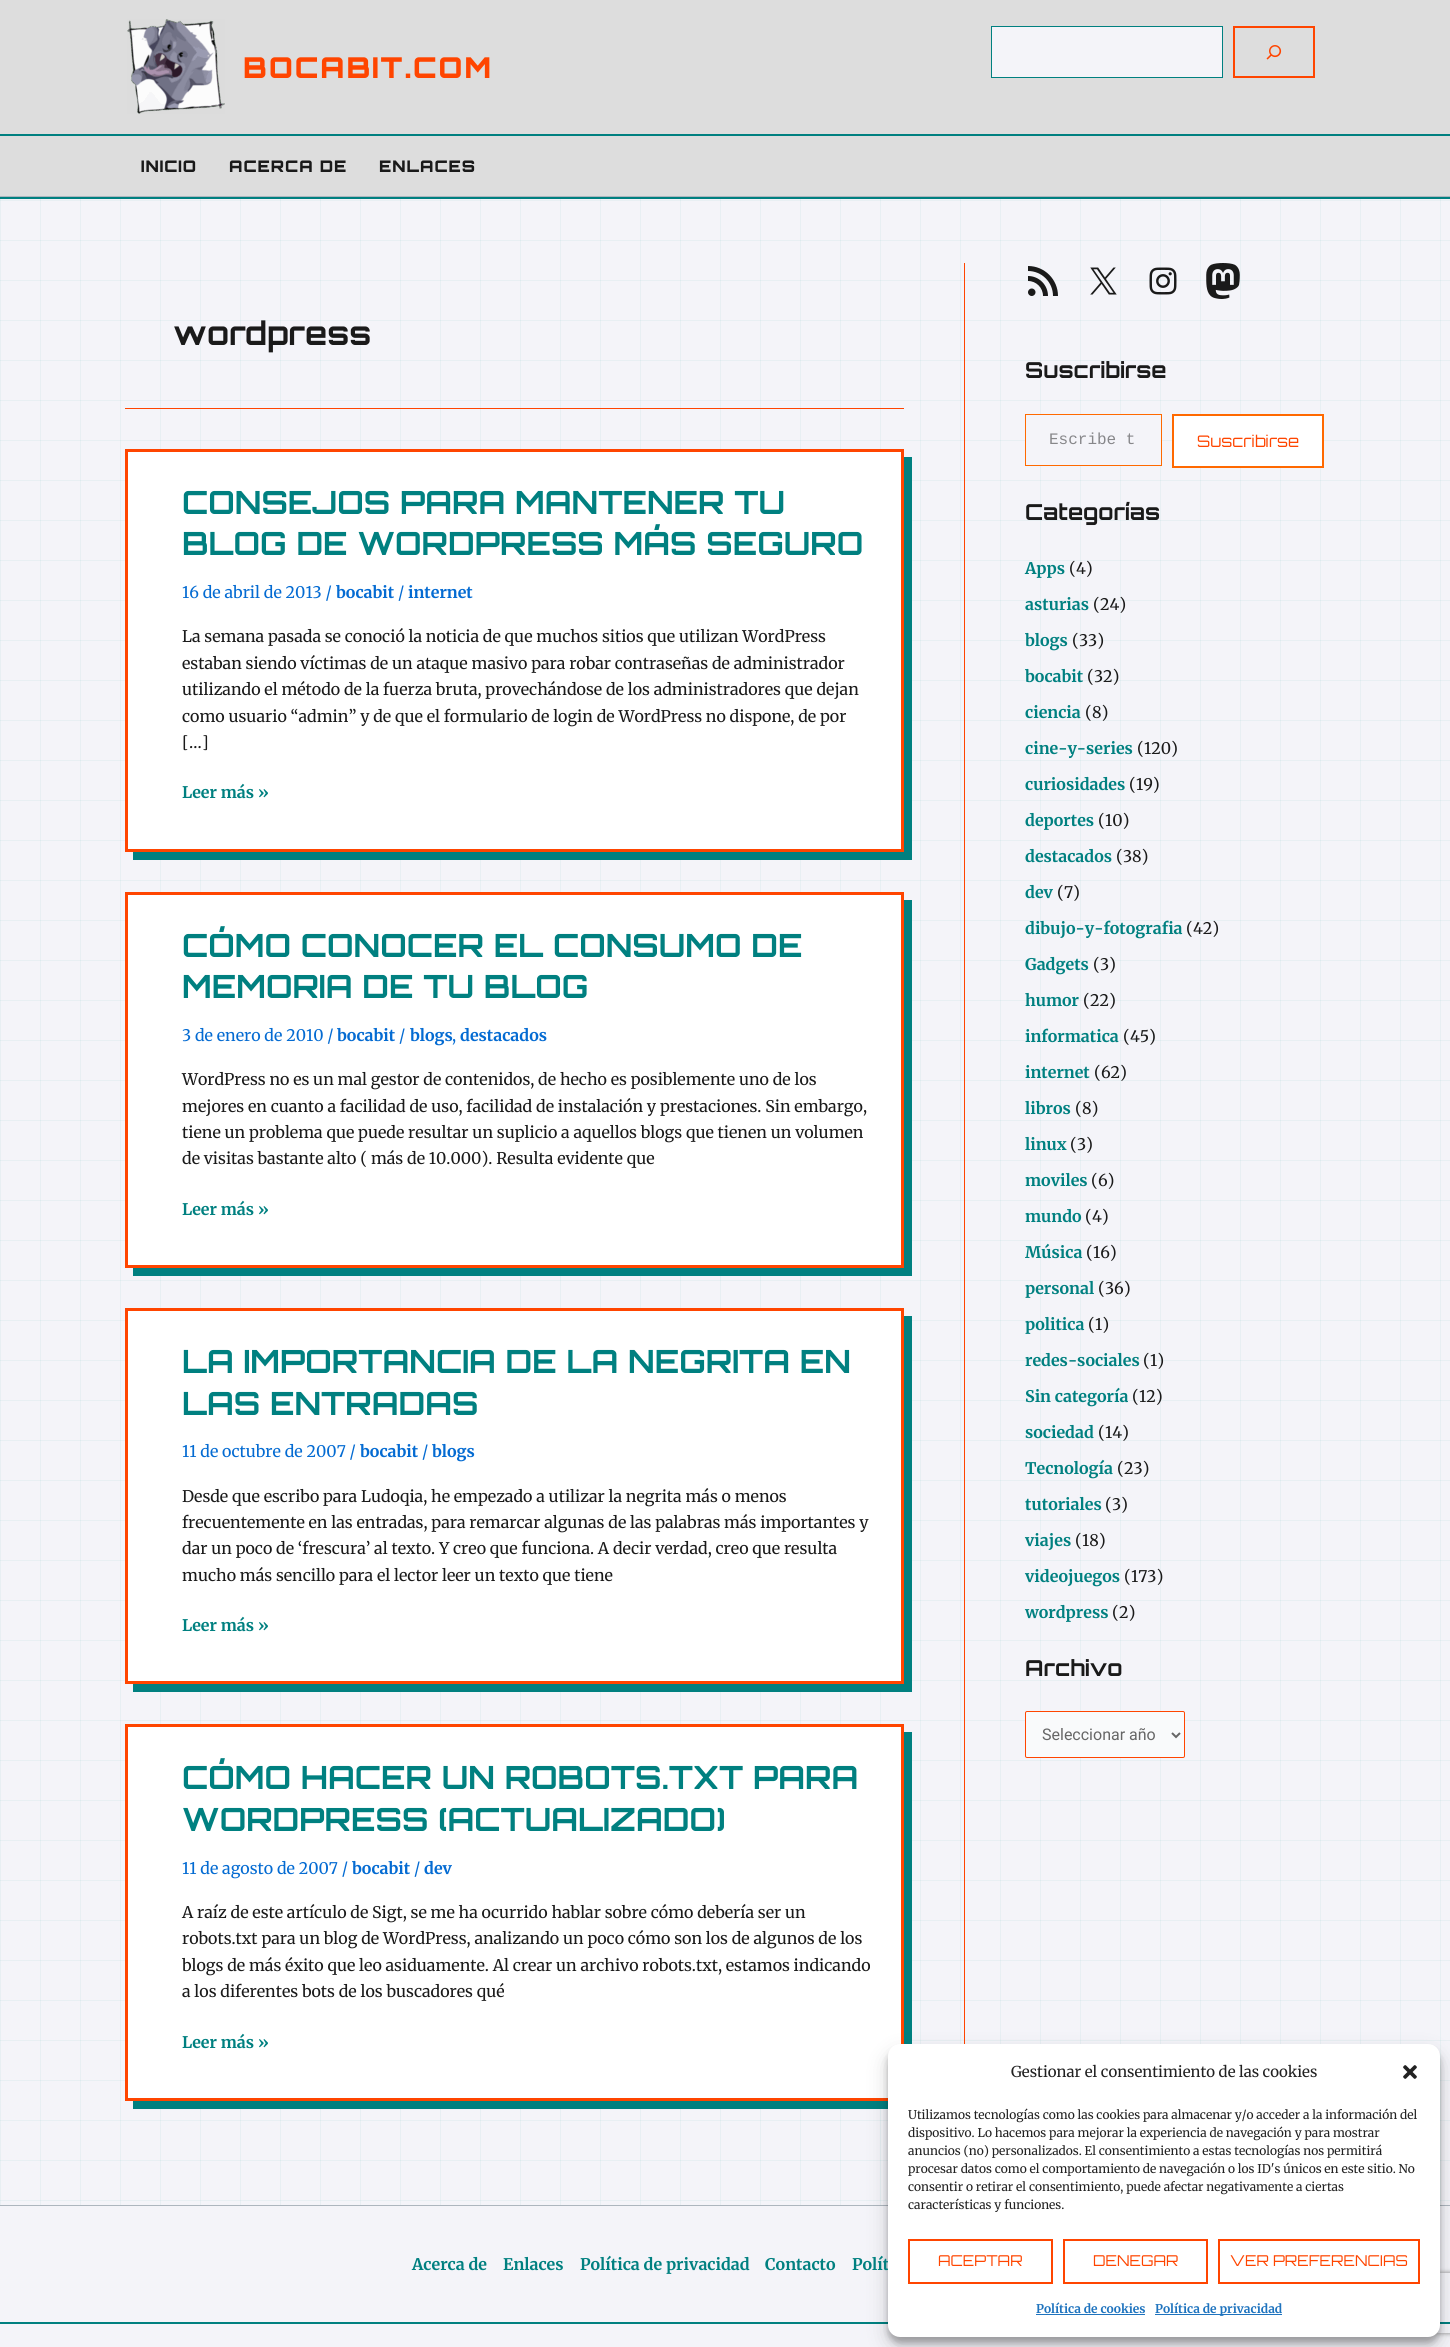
#include <cairo/cairo.h>
#include <math.h>
#include <stddef.h>

typedef struct { double x, y; const char *s; } line_t;
typedef struct { double x, y, w, h; unsigned color; } box_t;
static cairo_t *cr;

static void rgb(unsigned color)
{
	cairo_set_source_rgb(cr, (color >> 16) / 255.0, (color >> 8 & 255) / 255.0, (color & 255) / 255.0);
}

static void tracked(double x, double y, const char *s, double letter, double word)
{
	cairo_move_to(cr, x, y);
	while (*s) {
		char ch[5] = {0};
		int n = 0;
		do ch[n++] = *s++; while ((*s & 0xC0) == 0x80);
		cairo_show_text(cr, ch);
		cairo_rel_move_to(cr, letter + word * (*ch == ' '), 0);
	}
}

static void rrect(double x, double y, double w, double h, double r)
{
	cairo_new_sub_path(cr);
	cairo_arc(cr, x + w - r, y + h - r, r, 0, M_PI / 2);
	cairo_arc(cr, x + r, y + h - r, r, M_PI / 2, M_PI);
	cairo_arc(cr, x + r, y + r, r, M_PI, 1.5 * M_PI);
	cairo_arc(cr, x + w - r, y + r, r, 1.5 * M_PI, 2 * M_PI);
	cairo_close_path(cr);
}

static void soft_shadow(double x, double y, double w, double h, double r, double blur, double alpha)
{
	cairo_push_group_with_content(cr, CAIRO_CONTENT_ALPHA);
	cairo_set_operator(cr, CAIRO_OPERATOR_SOURCE);
	for (int i = 15; i >= -15 && fmin(w, h) + blur * i / 3 > 0; i -= 2) {
		double e = blur * i / 6;
		cairo_set_source_rgba(cr, 0, 0, 0, alpha * erfc((i - 1) / 8.5) / 2);
		rrect(x - e, y - e, w + 2 * e, h + 2 * e, fmax(0, fmin(r + e + blur * .6, fmin(w, h) / 2 + e)));
		cairo_fill(cr);
	}
	cairo_pattern_t *soft = cairo_pop_group(cr);
	cairo_mask(cr, soft);
	cairo_pattern_destroy(soft);
}

static void image(const char *path, double x, double y, double w, double h)
{
	cairo_surface_t *image = cairo_image_surface_create_from_png(path);
	cairo_save(cr);
	cairo_set_source_surface(cr, image, x, y);
	cairo_rectangle(cr, x, y, w, h);
	cairo_fill(cr);
	cairo_restore(cr);
	cairo_surface_destroy(image);
}

int main(void) {
	cairo_surface_t *surface = cairo_image_surface_create(CAIRO_FORMAT_RGB24, 1450, 2347);
	cr = cairo_create(surface);
	cairo_font_options_t *options = cairo_font_options_create();
	cairo_font_options_set_hint_metrics(options, CAIRO_HINT_METRICS_OFF);
	cairo_font_options_set_hint_style(options, CAIRO_HINT_STYLE_NONE);
	cairo_set_font_options(cr, options);
	cairo_set_miter_limit(cr, 4);
	rgb(0xf4f4f9);
	cairo_paint(cr);
	image("img/1.png", 0, 199, 1441, 2006);
	image("img/2.png", 0, 200, 1450, 2001);
	{
		static const box_t items[] = {
			{0, 0, 1450, 196, 0xdddddd},
			{0, 197, 1450, 2, 0x008080},
			{0, 134, 1450, 2, 0x008080},
		};
		for (size_t i = 0; i < sizeof items / sizeof *items; i++) {
			rgb(items[i].color);
			cairo_rectangle(cr, items[i].x, items[i].y, items[i].w, items[i].h);
			cairo_fill(cr);
		}
	}
	image("img/3.png", 127, 19, 98, 95);
	rgb(0xf4f4f9);
	cairo_rectangle(cr, 991.5, 26.5, 231, 51);
	cairo_fill_preserve(cr);
	rgb(0x008080);
	cairo_set_line_width(cr, 1);
	cairo_stroke(cr);
	cairo_rectangle(cr, 1234, 27, 80, 50);
	rgb(0xff4500);
	cairo_set_line_width(cr, 2);
	cairo_stroke(cr);
	image("img/4.png", 1266, 45, 16, 15);
	rgb(0xadb6be);
	cairo_rectangle(cr, 0, 196, 1450, 1);
	cairo_fill(cr);
	rgb(0xff4500);
	cairo_rectangle(cr, 125, 408, 779, 1);
	cairo_fill(cr);
	rgb(0x008080);
	cairo_new_path(cr);
	cairo_move_to(cr, 133, 852);
	cairo_line_to(cr, 133, 860);
	cairo_line_to(cr, 912, 860);
	cairo_line_to(cr, 912, 457);
	cairo_line_to(cr, 904, 457);
	cairo_line_to(cr, 904, 852);
	cairo_close_path(cr);
	cairo_fill(cr);
	rgb(0xffffff);
	cairo_rectangle(cr, 126.5, 450.5, 776, 400);
	cairo_fill_preserve(cr);
	rgb(0xff4500);
	cairo_set_line_width(cr, 3);
	cairo_stroke(cr);
	rgb(0x008080);
	cairo_new_path(cr);
	cairo_move_to(cr, 133, 1268);
	cairo_line_to(cr, 133, 1276);
	cairo_line_to(cr, 912, 1276);
	cairo_line_to(cr, 912, 900);
	cairo_line_to(cr, 904, 900);
	cairo_line_to(cr, 904, 1268);
	cairo_close_path(cr);
	cairo_fill(cr);
	rgb(0xffffff);
	cairo_rectangle(cr, 126.5, 893.5, 776, 373);
	cairo_fill_preserve(cr);
	rgb(0xff4500);
	cairo_stroke(cr);
	rgb(0x008080);
	cairo_new_path(cr);
	cairo_move_to(cr, 133, 1684);
	cairo_line_to(cr, 133, 1692);
	cairo_line_to(cr, 912, 1692);
	cairo_line_to(cr, 912, 1316);
	cairo_line_to(cr, 904, 1316);
	cairo_line_to(cr, 904, 1684);
	cairo_close_path(cr);
	cairo_fill(cr);
	rgb(0xffffff);
	cairo_rectangle(cr, 126.5, 1309.5, 776, 373);
	cairo_fill_preserve(cr);
	rgb(0xff4500);
	cairo_stroke(cr);
	rgb(0x008080);
	cairo_new_path(cr);
	cairo_move_to(cr, 133, 2101);
	cairo_line_to(cr, 133, 2109);
	cairo_line_to(cr, 912, 2109);
	cairo_line_to(cr, 912, 1732);
	cairo_line_to(cr, 904, 1732);
	cairo_line_to(cr, 904, 2101);
	cairo_close_path(cr);
	cairo_fill(cr);
	rgb(0xffffff);
	cairo_rectangle(cr, 126.5, 1725.5, 776, 374);
	cairo_fill_preserve(cr);
	rgb(0xff4500);
	cairo_stroke(cr);
	cairo_rectangle(cr, 964, 263, 1, 1781);
	cairo_fill(cr);
	image("img/5.png", 1028, 266, 30, 30);
	image("img/6.png", 1090, 267, 27, 28);
	image("img/7.png", 1149, 267, 28, 28);
	image("img/8.png", 1206, 263, 34, 36);
	rgb(0xf4f4f9);
	cairo_rectangle(cr, 1025.5, 414.5, 136, 51);
	cairo_fill_preserve(cr);
	rgb(0xff6900);
	cairo_set_line_width(cr, 1);
	cairo_stroke(cr);
	rgb(0xffffff);
	cairo_rectangle(cr, 1173, 415, 150, 52);
	cairo_fill_preserve(cr);
	rgb(0xff6900);
	cairo_set_line_width(cr, 2);
	cairo_stroke(cr);
	rgb(0xf9fafb);
	rrect(1025.5, 1711.5, 159, 46, 1.5);
	cairo_fill_preserve(cr);
	rgb(0xff4500);
	cairo_set_line_width(cr, 1);
	cairo_stroke(cr);
	cairo_new_path(cr);
	cairo_move_to(cr, 1172, 1733);
	cairo_line_to(cr, 1176, 1737);
	cairo_line_to(cr, 1180, 1733);
	rgb(0x666666);
	cairo_set_line_width(cr, 2);
	cairo_stroke(cr);
	rgb(0xadb6be);
	cairo_rectangle(cr, 0, 2205, 1450, 1);
	cairo_fill(cr);
	rgb(0x008080);
	cairo_rectangle(cr, 0, 2322, 1450, 2);
	cairo_fill(cr);
	rgb(0x000000);
	soft_shadow(888, 2050, 552, 293, 12, 3, 0.23);
	soft_shadow(888, 2054, 552, 293, 12, 10, 0.19);
	cairo_save(cr);
	cairo_set_fill_rule(cr, CAIRO_FILL_RULE_EVEN_ODD);
	cairo_new_path(cr);
	cairo_move_to(cr, 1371, 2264);
	cairo_line_to(cr, 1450, 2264);
	cairo_line_to(cr, 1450, 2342);
	cairo_line_to(cr, 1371, 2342);
	cairo_close_path(cr);
	cairo_move_to(cr, 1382, 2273);
	cairo_line_to(cr, 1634, 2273);
	cairo_curve_to(cr, 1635, 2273, 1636, 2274, 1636, 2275);
	cairo_line_to(cr, 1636, 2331);
	cairo_curve_to(cr, 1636, 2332, 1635, 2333, 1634, 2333);
	cairo_line_to(cr, 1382, 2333);
	cairo_curve_to(cr, 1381, 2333, 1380, 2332, 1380, 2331);
	cairo_line_to(cr, 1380, 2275);
	cairo_curve_to(cr, 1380, 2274, 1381, 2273, 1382, 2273);
	cairo_close_path(cr);
	cairo_clip(cr);
	rgb(0x808080);
	soft_shadow(1380, 2273, 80, 60, 2, 2.5, 1);
	cairo_restore(cr);
	cairo_select_font_face(cr, "Orbitron Black", CAIRO_FONT_SLANT_NORMAL, CAIRO_FONT_WEIGHT_NORMAL);
	cairo_set_font_size(cr, 28.75);
	rgb(0xff4500);
	tracked(243, 78, "BOCABIT.COM", 2, 0);
	cairo_set_font_size(cr, 16);
	rgb(0x1a1a1a);
	{
		static const line_t items[] = {
			{141, 172, "INICIO"},
			{229, 172, "ACERCA DE"},
			{379, 172, "ENLACES"},
		};
		for (size_t i = 0; i < sizeof items / sizeof *items; i++) {
			tracked(items[i].x, items[i].y, items[i].s, 1, 0);
		}
	}
	cairo_select_font_face(cr, "Orbitron", CAIRO_FONT_SLANT_NORMAL, CAIRO_FONT_WEIGHT_BOLD);
	cairo_set_font_size(cr, 32);
	cairo_move_to(cr, 173, 345);
	cairo_show_text(cr, "wordpress");
	rgb(0x008080);
	cairo_move_to(cr, 182, 514);
	cairo_show_text(cr, "CONSEJOS PARA MANTENER TU");
	cairo_move_to(cr, 182, 555);
	cairo_show_text(cr, "BLOG DE WORDPRESS MÁS SEGURO");
	cairo_select_font_face(cr, "Merriweather", CAIRO_FONT_SLANT_NORMAL, CAIRO_FONT_WEIGHT_NORMAL);
	cairo_set_font_size(cr, 16);
	rgb(0x046bd2);
	cairo_move_to(cr, 182, 598);
	cairo_show_text(cr, "16 de abril de 2013 /");
	cairo_select_font_face(cr, "Merriweather", CAIRO_FONT_SLANT_NORMAL, CAIRO_FONT_WEIGHT_BOLD);
	cairo_move_to(cr, 336, 598);
	cairo_show_text(cr, "bocabit");
	cairo_select_font_face(cr, "Merriweather", CAIRO_FONT_SLANT_NORMAL, CAIRO_FONT_WEIGHT_NORMAL);
	cairo_move_to(cr, 398, 598);
	cairo_show_text(cr, "/");
	cairo_select_font_face(cr, "Merriweather", CAIRO_FONT_SLANT_NORMAL, CAIRO_FONT_WEIGHT_BOLD);
	cairo_move_to(cr, 408, 598);
	cairo_show_text(cr, "internet");
	cairo_select_font_face(cr, "Merriweather", CAIRO_FONT_SLANT_NORMAL, CAIRO_FONT_WEIGHT_NORMAL);
	rgb(0x1a1a1a);
	{
		static const line_t items[] = {
			{182, 642, "La semana pasada se conoció la noticia de que muchos sitios que utilizan WordPress"},
			{182, 669, "estaban siendo víctimas de un ataque masivo para robar contraseñas de administrador"},
			{182, 695, "utilizando el método de la fuerza bruta, provechándose de los administradores que dejan"},
			{182, 722, "como usuario “admin” y de que el formulario de login de WordPress no dispone, de por"},
			{182, 748, "[…]"},
		};
		for (size_t i = 0; i < sizeof items / sizeof *items; i++) {
			cairo_move_to(cr, items[i].x, items[i].y);
			cairo_show_text(cr, items[i].s);
		}
	}
	cairo_select_font_face(cr, "Merriweather", CAIRO_FONT_SLANT_NORMAL, CAIRO_FONT_WEIGHT_BOLD);
	rgb(0x008080);
	cairo_move_to(cr, 182, 798);
	cairo_show_text(cr, "Leer más »");
	cairo_select_font_face(cr, "Orbitron", CAIRO_FONT_SLANT_NORMAL, CAIRO_FONT_WEIGHT_BOLD);
	cairo_set_font_size(cr, 32);
	cairo_move_to(cr, 182, 957);
	cairo_show_text(cr, "CÓMO CONOCER EL CONSUMO DE");
	cairo_move_to(cr, 182, 998);
	cairo_show_text(cr, "MEMORIA DE TU BLOG");
	cairo_select_font_face(cr, "Merriweather", CAIRO_FONT_SLANT_NORMAL, CAIRO_FONT_WEIGHT_NORMAL);
	cairo_set_font_size(cr, 16);
	rgb(0x046bd2);
	cairo_move_to(cr, 182, 1041);
	cairo_show_text(cr, "3 de enero de 2010 /");
	cairo_select_font_face(cr, "Merriweather", CAIRO_FONT_SLANT_NORMAL, CAIRO_FONT_WEIGHT_BOLD);
	cairo_move_to(cr, 337, 1041);
	cairo_show_text(cr, "bocabit");
	cairo_select_font_face(cr, "Merriweather", CAIRO_FONT_SLANT_NORMAL, CAIRO_FONT_WEIGHT_NORMAL);
	cairo_move_to(cr, 399, 1041);
	cairo_show_text(cr, "/");
	cairo_select_font_face(cr, "Merriweather", CAIRO_FONT_SLANT_NORMAL, CAIRO_FONT_WEIGHT_BOLD);
	cairo_move_to(cr, 410, 1041);
	cairo_show_text(cr, "blogs");
	cairo_select_font_face(cr, "Merriweather", CAIRO_FONT_SLANT_NORMAL, CAIRO_FONT_WEIGHT_NORMAL);
	cairo_move_to(cr, 452, 1041);
	cairo_show_text(cr, ",");
	cairo_select_font_face(cr, "Merriweather", CAIRO_FONT_SLANT_NORMAL, CAIRO_FONT_WEIGHT_BOLD);
	cairo_move_to(cr, 460, 1041);
	cairo_show_text(cr, "destacados");
	cairo_select_font_face(cr, "Merriweather", CAIRO_FONT_SLANT_NORMAL, CAIRO_FONT_WEIGHT_NORMAL);
	rgb(0x1a1a1a);
	{
		static const line_t items[] = {
			{182, 1085, "WordPress no es un mal gestor de contenidos, de hecho es posiblemente uno de los"},
			{182, 1112, "mejores en cuanto a facilidad de uso, facilidad de instalación y prestaciones. Sin embargo,"},
			{182, 1138, "tiene un problema que puede resultar un suplicio a aquellos blogs que tienen un volumen"},
			{182, 1164, "de visitas bastante alto ( más de 10.000). Resulta evidente que"},
		};
		for (size_t i = 0; i < sizeof items / sizeof *items; i++) {
			cairo_move_to(cr, items[i].x, items[i].y);
			cairo_show_text(cr, items[i].s);
		}
	}
	cairo_select_font_face(cr, "Merriweather", CAIRO_FONT_SLANT_NORMAL, CAIRO_FONT_WEIGHT_BOLD);
	rgb(0x008080);
	cairo_move_to(cr, 182, 1215);
	cairo_show_text(cr, "Leer más »");
	cairo_select_font_face(cr, "Orbitron", CAIRO_FONT_SLANT_NORMAL, CAIRO_FONT_WEIGHT_BOLD);
	cairo_set_font_size(cr, 32);
	cairo_move_to(cr, 182, 1373);
	cairo_show_text(cr, "LA IMPORTANCIA DE LA NEGRITA EN");
	cairo_move_to(cr, 182, 1415);
	cairo_show_text(cr, "LAS ENTRADAS");
	cairo_select_font_face(cr, "Merriweather", CAIRO_FONT_SLANT_NORMAL, CAIRO_FONT_WEIGHT_NORMAL);
	cairo_set_font_size(cr, 16);
	rgb(0x046bd2);
	cairo_move_to(cr, 182, 1457);
	cairo_show_text(cr, "11 de octubre de 2007 /");
	cairo_select_font_face(cr, "Merriweather", CAIRO_FONT_SLANT_NORMAL, CAIRO_FONT_WEIGHT_BOLD);
	cairo_move_to(cr, 360, 1457);
	cairo_show_text(cr, "bocabit");
	cairo_select_font_face(cr, "Merriweather", CAIRO_FONT_SLANT_NORMAL, CAIRO_FONT_WEIGHT_NORMAL);
	cairo_move_to(cr, 422, 1457);
	cairo_show_text(cr, "/");
	cairo_select_font_face(cr, "Merriweather", CAIRO_FONT_SLANT_NORMAL, CAIRO_FONT_WEIGHT_BOLD);
	cairo_move_to(cr, 432, 1457);
	cairo_show_text(cr, "blogs");
	cairo_select_font_face(cr, "Merriweather", CAIRO_FONT_SLANT_NORMAL, CAIRO_FONT_WEIGHT_NORMAL);
	rgb(0x1a1a1a);
	{
		static const line_t items[] = {
			{182, 1502, "Desde que escribo para Ludoqia, he empezado a utilizar la negrita más o menos"},
			{182, 1528, "frecuentemente en las entradas, para remarcar algunas de las palabras más importantes y"},
			{182, 1554, "dar un poco de ‘frescura’ al texto. Y creo que funciona. A decir verdad, creo que resulta"},
			{182, 1581, "mucho más sencillo para el lector leer un texto que tiene"},
		};
		for (size_t i = 0; i < sizeof items / sizeof *items; i++) {
			cairo_move_to(cr, items[i].x, items[i].y);
			cairo_show_text(cr, items[i].s);
		}
	}
	cairo_select_font_face(cr, "Merriweather", CAIRO_FONT_SLANT_NORMAL, CAIRO_FONT_WEIGHT_BOLD);
	rgb(0x008080);
	cairo_move_to(cr, 182, 1631);
	cairo_show_text(cr, "Leer más »");
	cairo_select_font_face(cr, "Orbitron", CAIRO_FONT_SLANT_NORMAL, CAIRO_FONT_WEIGHT_BOLD);
	cairo_set_font_size(cr, 32);
	cairo_move_to(cr, 182, 1789);
	cairo_show_text(cr, "CÓMO HACER UN ROBOTS.TXT PARA");
	cairo_move_to(cr, 182, 1831);
	cairo_show_text(cr, "WORDPRESS (ACTUALIZADO)");
	cairo_select_font_face(cr, "Merriweather", CAIRO_FONT_SLANT_NORMAL, CAIRO_FONT_WEIGHT_NORMAL);
	cairo_set_font_size(cr, 16);
	rgb(0x046bd2);
	cairo_move_to(cr, 182, 1874);
	cairo_show_text(cr, "11 de agosto de 2007 /");
	cairo_select_font_face(cr, "Merriweather", CAIRO_FONT_SLANT_NORMAL, CAIRO_FONT_WEIGHT_BOLD);
	cairo_move_to(cr, 352, 1874);
	cairo_show_text(cr, "bocabit");
	cairo_select_font_face(cr, "Merriweather", CAIRO_FONT_SLANT_NORMAL, CAIRO_FONT_WEIGHT_NORMAL);
	cairo_move_to(cr, 414, 1874);
	cairo_show_text(cr, "/");
	cairo_select_font_face(cr, "Merriweather", CAIRO_FONT_SLANT_NORMAL, CAIRO_FONT_WEIGHT_BOLD);
	cairo_move_to(cr, 424, 1874);
	cairo_show_text(cr, "dev");
	cairo_select_font_face(cr, "Merriweather", CAIRO_FONT_SLANT_NORMAL, CAIRO_FONT_WEIGHT_NORMAL);
	rgb(0x1a1a1a);
	{
		static const line_t items[] = {
			{182, 1918, "A raíz de este artículo de Sigt, se me ha ocurrido hablar sobre cómo debería ser un"},
			{182, 1944, "robots.txt para un blog de WordPress, analizando un poco cómo son los de algunos de los"},
			{182, 1971, "blogs de más éxito que leo asiduamente. Al crear un archivo robots.txt, estamos indicando"},
			{182, 1997, "a los diferentes bots de los buscadores qué"},
		};
		for (size_t i = 0; i < sizeof items / sizeof *items; i++) {
			cairo_move_to(cr, items[i].x, items[i].y);
			cairo_show_text(cr, items[i].s);
		}
	}
	cairo_select_font_face(cr, "Merriweather", CAIRO_FONT_SLANT_NORMAL, CAIRO_FONT_WEIGHT_BOLD);
	rgb(0x008080);
	cairo_move_to(cr, 182, 2048);
	cairo_show_text(cr, "Leer más »");
	cairo_select_font_face(cr, "Orbitron", CAIRO_FONT_SLANT_NORMAL, CAIRO_FONT_WEIGHT_BOLD);
	cairo_set_font_size(cr, 22);
	rgb(0x1a1a1a);
	cairo_move_to(cr, 1025, 378);
	cairo_show_text(cr, "Suscribirse");
	cairo_select_font_face(cr, "Liberation Mono", CAIRO_FONT_SLANT_NORMAL, CAIRO_FONT_WEIGHT_NORMAL);
	cairo_set_font_size(cr, 16);
	rgb(0x87878a);
	cairo_move_to(cr, 1049, 444);
	cairo_show_text(cr, "Escribe t");
	cairo_select_font_face(cr, "Orbitron", CAIRO_FONT_SLANT_NORMAL, CAIRO_FONT_WEIGHT_NORMAL);
	rgb(0xff4500);
	cairo_move_to(cr, 1197, 447);
	cairo_show_text(cr, "Suscribirse");
	cairo_select_font_face(cr, "Orbitron", CAIRO_FONT_SLANT_NORMAL, CAIRO_FONT_WEIGHT_BOLD);
	cairo_set_font_size(cr, 22);
	rgb(0x1a1a1a);
	cairo_move_to(cr, 1025, 520);
	cairo_show_text(cr, "Categorías");
	cairo_select_font_face(cr, "Merriweather", CAIRO_FONT_SLANT_NORMAL, CAIRO_FONT_WEIGHT_BOLD);
	cairo_set_font_size(cr, 16);
	rgb(0x008080);
	cairo_move_to(cr, 1025, 574);
	cairo_show_text(cr, "Apps");
	cairo_select_font_face(cr, "Merriweather", CAIRO_FONT_SLANT_NORMAL, CAIRO_FONT_WEIGHT_NORMAL);
	rgb(0x1a1a1a);
	cairo_move_to(cr, 1069, 574);
	cairo_show_text(cr, "(4)");
	cairo_select_font_face(cr, "Merriweather", CAIRO_FONT_SLANT_NORMAL, CAIRO_FONT_WEIGHT_BOLD);
	rgb(0x008080);
	cairo_move_to(cr, 1025, 610);
	cairo_show_text(cr, "asturias");
	cairo_select_font_face(cr, "Merriweather", CAIRO_FONT_SLANT_NORMAL, CAIRO_FONT_WEIGHT_NORMAL);
	rgb(0x1a1a1a);
	cairo_move_to(cr, 1093, 610);
	cairo_show_text(cr, "(24)");
	cairo_select_font_face(cr, "Merriweather", CAIRO_FONT_SLANT_NORMAL, CAIRO_FONT_WEIGHT_BOLD);
	rgb(0x008080);
	cairo_move_to(cr, 1025, 646);
	cairo_show_text(cr, "blogs");
	cairo_select_font_face(cr, "Merriweather", CAIRO_FONT_SLANT_NORMAL, CAIRO_FONT_WEIGHT_NORMAL);
	rgb(0x1a1a1a);
	cairo_move_to(cr, 1072, 646);
	cairo_show_text(cr, "(33)");
	cairo_select_font_face(cr, "Merriweather", CAIRO_FONT_SLANT_NORMAL, CAIRO_FONT_WEIGHT_BOLD);
	rgb(0x008080);
	cairo_move_to(cr, 1025, 682);
	cairo_show_text(cr, "bocabit");
	cairo_select_font_face(cr, "Merriweather", CAIRO_FONT_SLANT_NORMAL, CAIRO_FONT_WEIGHT_NORMAL);
	rgb(0x1a1a1a);
	cairo_move_to(cr, 1087, 682);
	cairo_show_text(cr, "(32)");
	cairo_select_font_face(cr, "Merriweather", CAIRO_FONT_SLANT_NORMAL, CAIRO_FONT_WEIGHT_BOLD);
	rgb(0x008080);
	cairo_move_to(cr, 1025, 718);
	cairo_show_text(cr, "ciencia");
	cairo_select_font_face(cr, "Merriweather", CAIRO_FONT_SLANT_NORMAL, CAIRO_FONT_WEIGHT_NORMAL);
	rgb(0x1a1a1a);
	cairo_move_to(cr, 1085, 718);
	cairo_show_text(cr, "(8)");
	cairo_select_font_face(cr, "Merriweather", CAIRO_FONT_SLANT_NORMAL, CAIRO_FONT_WEIGHT_BOLD);
	rgb(0x008080);
	cairo_move_to(cr, 1025, 754);
	cairo_show_text(cr, "cine-y-series");
	cairo_select_font_face(cr, "Merriweather", CAIRO_FONT_SLANT_NORMAL, CAIRO_FONT_WEIGHT_NORMAL);
	rgb(0x1a1a1a);
	cairo_move_to(cr, 1137, 754);
	cairo_show_text(cr, "(120)");
	cairo_select_font_face(cr, "Merriweather", CAIRO_FONT_SLANT_NORMAL, CAIRO_FONT_WEIGHT_BOLD);
	rgb(0x008080);
	cairo_move_to(cr, 1025, 790);
	cairo_show_text(cr, "curiosidades");
	cairo_select_font_face(cr, "Merriweather", CAIRO_FONT_SLANT_NORMAL, CAIRO_FONT_WEIGHT_NORMAL);
	rgb(0x1a1a1a);
	cairo_move_to(cr, 1129, 790);
	cairo_show_text(cr, "(19)");
	cairo_select_font_face(cr, "Merriweather", CAIRO_FONT_SLANT_NORMAL, CAIRO_FONT_WEIGHT_BOLD);
	rgb(0x008080);
	cairo_move_to(cr, 1025, 826);
	cairo_show_text(cr, "deportes");
	cairo_select_font_face(cr, "Merriweather", CAIRO_FONT_SLANT_NORMAL, CAIRO_FONT_WEIGHT_NORMAL);
	rgb(0x1a1a1a);
	cairo_move_to(cr, 1098, 826);
	cairo_show_text(cr, "(10)");
	cairo_select_font_face(cr, "Merriweather", CAIRO_FONT_SLANT_NORMAL, CAIRO_FONT_WEIGHT_BOLD);
	rgb(0x008080);
	cairo_move_to(cr, 1025, 862);
	cairo_show_text(cr, "destacados");
	cairo_select_font_face(cr, "Merriweather", CAIRO_FONT_SLANT_NORMAL, CAIRO_FONT_WEIGHT_NORMAL);
	rgb(0x1a1a1a);
	cairo_move_to(cr, 1116, 862);
	cairo_show_text(cr, "(38)");
	cairo_select_font_face(cr, "Merriweather", CAIRO_FONT_SLANT_NORMAL, CAIRO_FONT_WEIGHT_BOLD);
	rgb(0x008080);
	cairo_move_to(cr, 1025, 898);
	cairo_show_text(cr, "dev");
	cairo_select_font_face(cr, "Merriweather", CAIRO_FONT_SLANT_NORMAL, CAIRO_FONT_WEIGHT_NORMAL);
	rgb(0x1a1a1a);
	cairo_move_to(cr, 1057, 898);
	cairo_show_text(cr, "(7)");
	cairo_select_font_face(cr, "Merriweather", CAIRO_FONT_SLANT_NORMAL, CAIRO_FONT_WEIGHT_BOLD);
	rgb(0x008080);
	cairo_move_to(cr, 1025, 934);
	cairo_show_text(cr, "dibujo-y-fotografia");
	cairo_select_font_face(cr, "Merriweather", CAIRO_FONT_SLANT_NORMAL, CAIRO_FONT_WEIGHT_NORMAL);
	rgb(0x1a1a1a);
	cairo_move_to(cr, 1186, 934);
	cairo_show_text(cr, "(42)");
	cairo_select_font_face(cr, "Merriweather", CAIRO_FONT_SLANT_NORMAL, CAIRO_FONT_WEIGHT_BOLD);
	rgb(0x008080);
	cairo_move_to(cr, 1025, 970);
	cairo_show_text(cr, "Gadgets");
	cairo_select_font_face(cr, "Merriweather", CAIRO_FONT_SLANT_NORMAL, CAIRO_FONT_WEIGHT_NORMAL);
	rgb(0x1a1a1a);
	cairo_move_to(cr, 1093, 970);
	cairo_show_text(cr, "(3)");
	cairo_select_font_face(cr, "Merriweather", CAIRO_FONT_SLANT_NORMAL, CAIRO_FONT_WEIGHT_BOLD);
	rgb(0x008080);
	cairo_move_to(cr, 1025, 1006);
	cairo_show_text(cr, "humor");
	cairo_select_font_face(cr, "Merriweather", CAIRO_FONT_SLANT_NORMAL, CAIRO_FONT_WEIGHT_NORMAL);
	rgb(0x1a1a1a);
	cairo_move_to(cr, 1083, 1006);
	cairo_show_text(cr, "(22)");
	cairo_select_font_face(cr, "Merriweather", CAIRO_FONT_SLANT_NORMAL, CAIRO_FONT_WEIGHT_BOLD);
	rgb(0x008080);
	cairo_move_to(cr, 1025, 1042);
	cairo_show_text(cr, "informatica");
	cairo_select_font_face(cr, "Merriweather", CAIRO_FONT_SLANT_NORMAL, CAIRO_FONT_WEIGHT_NORMAL);
	rgb(0x1a1a1a);
	cairo_move_to(cr, 1123, 1042);
	cairo_show_text(cr, "(45)");
	cairo_select_font_face(cr, "Merriweather", CAIRO_FONT_SLANT_NORMAL, CAIRO_FONT_WEIGHT_BOLD);
	rgb(0x008080);
	cairo_move_to(cr, 1025, 1078);
	cairo_show_text(cr, "internet");
	cairo_select_font_face(cr, "Merriweather", CAIRO_FONT_SLANT_NORMAL, CAIRO_FONT_WEIGHT_NORMAL);
	rgb(0x1a1a1a);
	cairo_move_to(cr, 1094, 1078);
	cairo_show_text(cr, "(62)");
	cairo_select_font_face(cr, "Merriweather", CAIRO_FONT_SLANT_NORMAL, CAIRO_FONT_WEIGHT_BOLD);
	rgb(0x008080);
	cairo_move_to(cr, 1025, 1114);
	cairo_show_text(cr, "libros");
	cairo_select_font_face(cr, "Merriweather", CAIRO_FONT_SLANT_NORMAL, CAIRO_FONT_WEIGHT_NORMAL);
	rgb(0x1a1a1a);
	cairo_move_to(cr, 1075, 1114);
	cairo_show_text(cr, "(8)");
	cairo_select_font_face(cr, "Merriweather", CAIRO_FONT_SLANT_NORMAL, CAIRO_FONT_WEIGHT_BOLD);
	rgb(0x008080);
	cairo_move_to(cr, 1025, 1150);
	cairo_show_text(cr, "linux");
	cairo_select_font_face(cr, "Merriweather", CAIRO_FONT_SLANT_NORMAL, CAIRO_FONT_WEIGHT_NORMAL);
	rgb(0x1a1a1a);
	cairo_move_to(cr, 1070, 1150);
	cairo_show_text(cr, "(3)");
	cairo_select_font_face(cr, "Merriweather", CAIRO_FONT_SLANT_NORMAL, CAIRO_FONT_WEIGHT_BOLD);
	rgb(0x008080);
	cairo_move_to(cr, 1025, 1186);
	cairo_show_text(cr, "moviles");
	cairo_select_font_face(cr, "Merriweather", CAIRO_FONT_SLANT_NORMAL, CAIRO_FONT_WEIGHT_NORMAL);
	rgb(0x1a1a1a);
	cairo_move_to(cr, 1091, 1186);
	cairo_show_text(cr, "(6)");
	cairo_select_font_face(cr, "Merriweather", CAIRO_FONT_SLANT_NORMAL, CAIRO_FONT_WEIGHT_BOLD);
	rgb(0x008080);
	cairo_move_to(cr, 1025, 1222);
	cairo_show_text(cr, "mundo");
	cairo_select_font_face(cr, "Merriweather", CAIRO_FONT_SLANT_NORMAL, CAIRO_FONT_WEIGHT_NORMAL);
	rgb(0x1a1a1a);
	cairo_move_to(cr, 1085, 1222);
	cairo_show_text(cr, "(4)");
	cairo_select_font_face(cr, "Merriweather", CAIRO_FONT_SLANT_NORMAL, CAIRO_FONT_WEIGHT_BOLD);
	rgb(0x008080);
	cairo_move_to(cr, 1025, 1258);
	cairo_show_text(cr, "Música");
	cairo_select_font_face(cr, "Merriweather", CAIRO_FONT_SLANT_NORMAL, CAIRO_FONT_WEIGHT_NORMAL);
	rgb(0x1a1a1a);
	cairo_move_to(cr, 1086, 1258);
	cairo_show_text(cr, "(16)");
	cairo_select_font_face(cr, "Merriweather", CAIRO_FONT_SLANT_NORMAL, CAIRO_FONT_WEIGHT_BOLD);
	rgb(0x008080);
	cairo_move_to(cr, 1025, 1294);
	cairo_show_text(cr, "personal");
	cairo_select_font_face(cr, "Merriweather", CAIRO_FONT_SLANT_NORMAL, CAIRO_FONT_WEIGHT_NORMAL);
	rgb(0x1a1a1a);
	cairo_move_to(cr, 1098, 1294);
	cairo_show_text(cr, "(36)");
	cairo_select_font_face(cr, "Merriweather", CAIRO_FONT_SLANT_NORMAL, CAIRO_FONT_WEIGHT_BOLD);
	rgb(0x008080);
	cairo_move_to(cr, 1025, 1330);
	cairo_show_text(cr, "politica");
	cairo_select_font_face(cr, "Merriweather", CAIRO_FONT_SLANT_NORMAL, CAIRO_FONT_WEIGHT_NORMAL);
	rgb(0x1a1a1a);
	cairo_move_to(cr, 1088, 1330);
	cairo_show_text(cr, "(1)");
	cairo_select_font_face(cr, "Merriweather", CAIRO_FONT_SLANT_NORMAL, CAIRO_FONT_WEIGHT_BOLD);
	rgb(0x008080);
	cairo_move_to(cr, 1025, 1366);
	cairo_show_text(cr, "redes-sociales");
	cairo_select_font_face(cr, "Merriweather", CAIRO_FONT_SLANT_NORMAL, CAIRO_FONT_WEIGHT_NORMAL);
	rgb(0x1a1a1a);
	cairo_move_to(cr, 1143, 1366);
	cairo_show_text(cr, "(1)");
	cairo_select_font_face(cr, "Merriweather", CAIRO_FONT_SLANT_NORMAL, CAIRO_FONT_WEIGHT_BOLD);
	rgb(0x008080);
	cairo_move_to(cr, 1025, 1402);
	cairo_show_text(cr, "Sin categoría");
	cairo_select_font_face(cr, "Merriweather", CAIRO_FONT_SLANT_NORMAL, CAIRO_FONT_WEIGHT_NORMAL);
	rgb(0x1a1a1a);
	cairo_move_to(cr, 1132, 1402);
	cairo_show_text(cr, "(12)");
	cairo_select_font_face(cr, "Merriweather", CAIRO_FONT_SLANT_NORMAL, CAIRO_FONT_WEIGHT_BOLD);
	rgb(0x008080);
	cairo_move_to(cr, 1025, 1438);
	cairo_show_text(cr, "sociedad");
	cairo_select_font_face(cr, "Merriweather", CAIRO_FONT_SLANT_NORMAL, CAIRO_FONT_WEIGHT_NORMAL);
	rgb(0x1a1a1a);
	cairo_move_to(cr, 1098, 1438);
	cairo_show_text(cr, "(14)");
	cairo_select_font_face(cr, "Merriweather", CAIRO_FONT_SLANT_NORMAL, CAIRO_FONT_WEIGHT_BOLD);
	rgb(0x008080);
	cairo_move_to(cr, 1025, 1474);
	cairo_show_text(cr, "Tecnología");
	cairo_select_font_face(cr, "Merriweather", CAIRO_FONT_SLANT_NORMAL, CAIRO_FONT_WEIGHT_NORMAL);
	rgb(0x1a1a1a);
	cairo_move_to(cr, 1117, 1474);
	cairo_show_text(cr, "(23)");
	cairo_select_font_face(cr, "Merriweather", CAIRO_FONT_SLANT_NORMAL, CAIRO_FONT_WEIGHT_BOLD);
	rgb(0x008080);
	cairo_move_to(cr, 1025, 1510);
	cairo_show_text(cr, "tutoriales");
	cairo_select_font_face(cr, "Merriweather", CAIRO_FONT_SLANT_NORMAL, CAIRO_FONT_WEIGHT_NORMAL);
	rgb(0x1a1a1a);
	cairo_move_to(cr, 1105, 1510);
	cairo_show_text(cr, "(3)");
	cairo_select_font_face(cr, "Merriweather", CAIRO_FONT_SLANT_NORMAL, CAIRO_FONT_WEIGHT_BOLD);
	rgb(0x008080);
	cairo_move_to(cr, 1025, 1546);
	cairo_show_text(cr, "viajes");
	cairo_select_font_face(cr, "Merriweather", CAIRO_FONT_SLANT_NORMAL, CAIRO_FONT_WEIGHT_NORMAL);
	rgb(0x1a1a1a);
	cairo_move_to(cr, 1075, 1546);
	cairo_show_text(cr, "(18)");
	cairo_select_font_face(cr, "Merriweather", CAIRO_FONT_SLANT_NORMAL, CAIRO_FONT_WEIGHT_BOLD);
	rgb(0x008080);
	cairo_move_to(cr, 1025, 1582);
	cairo_show_text(cr, "videojuegos");
	cairo_select_font_face(cr, "Merriweather", CAIRO_FONT_SLANT_NORMAL, CAIRO_FONT_WEIGHT_NORMAL);
	rgb(0x1a1a1a);
	cairo_move_to(cr, 1124, 1582);
	cairo_show_text(cr, "(173)");
	cairo_select_font_face(cr, "Merriweather", CAIRO_FONT_SLANT_NORMAL, CAIRO_FONT_WEIGHT_BOLD);
	rgb(0x008080);
	cairo_move_to(cr, 1025, 1618);
	cairo_show_text(cr, "wordpress");
	cairo_select_font_face(cr, "Merriweather", CAIRO_FONT_SLANT_NORMAL, CAIRO_FONT_WEIGHT_NORMAL);
	rgb(0x1a1a1a);
	cairo_move_to(cr, 1112, 1618);
	cairo_show_text(cr, "(2)");
	cairo_select_font_face(cr, "Orbitron", CAIRO_FONT_SLANT_NORMAL, CAIRO_FONT_WEIGHT_BOLD);
	cairo_set_font_size(cr, 22);
	cairo_move_to(cr, 1025, 1676);
	cairo_show_text(cr, "Archivo");
	cairo_select_font_face(cr, "Roboto", CAIRO_FONT_SLANT_NORMAL, CAIRO_FONT_WEIGHT_NORMAL);
	cairo_set_font_size(cr, 16);
	rgb(0x666666);
	cairo_move_to(cr, 1042, 1740);
	cairo_show_text(cr, "Seleccionar año");
	cairo_select_font_face(cr, "Merriweather", CAIRO_FONT_SLANT_NORMAL, CAIRO_FONT_WEIGHT_BOLD);
	rgb(0x008080);
	{
		static const line_t items[] = {
			{412, 2270, "Acerca de"},
			{503, 2270, "Enlaces"},
			{580, 2270, "Política de privacidad"},
			{765, 2270, "Contacto"},
			{852, 2270, "Polít"},
		};
		for (size_t i = 0; i < sizeof items / sizeof *items; i++) {
			cairo_move_to(cr, items[i].x, items[i].y);
			cairo_show_text(cr, items[i].s);
		}
	}
	rgb(0xffffff);
	rrect(888, 2044, 552, 293, 12);
	cairo_fill(cr);
	cairo_select_font_face(cr, "Merriweather", CAIRO_FONT_SLANT_NORMAL, CAIRO_FONT_WEIGHT_NORMAL);
	cairo_set_font_size(cr, 15);
	rgb(0x222222);
	cairo_move_to(cr, 1011, 2077);
	cairo_show_text(cr, "Gestionar el consentimiento de las cookies");
	image("img/9.png", 1403, 2065, 14, 14);
	cairo_set_font_size(cr, 12);
	{
		static const line_t items[] = {
			{908, 2119, "Utilizamos tecnologías como las cookies para almacenar y/o acceder a la información del"},
			{908, 2137, "dispositivo. Lo hacemos para mejorar la experiencia de navegación y para mostrar"},
			{908, 2155, "anuncios (no) personalizados. El consentimiento a estas tecnologías nos permitirá"},
			{908, 2173, "procesar datos como el comportamiento de navegación o los ID's únicos en este sitio. No"},
			{908, 2191, "consentir o retirar el consentimiento, puede afectar negativamente a ciertas"},
			{908, 2209, "características y funciones."},
		};
		for (size_t i = 0; i < sizeof items / sizeof *items; i++) {
			cairo_move_to(cr, items[i].x, items[i].y);
			cairo_show_text(cr, items[i].s);
		}
	}
	cairo_rectangle(cr, 909, 2240, 143, 43);
	rgb(0xff4500);
	cairo_stroke(cr);
	cairo_select_font_face(cr, "Orbitron", CAIRO_FONT_SLANT_NORMAL, CAIRO_FONT_WEIGHT_NORMAL);
	cairo_set_font_size(cr, 15);
	cairo_move_to(cr, 938, 2266);
	cairo_show_text(cr, "ACEPTAR");
	cairo_rectangle(cr, 1064, 2240, 143, 43);
	cairo_stroke(cr);
	cairo_move_to(cr, 1093, 2266);
	cairo_show_text(cr, "DENEGAR");
	cairo_rectangle(cr, 1219, 2240, 200, 43);
	cairo_stroke(cr);
	cairo_move_to(cr, 1230, 2266);
	cairo_show_text(cr, "VER PREFERENCIAS");
	cairo_select_font_face(cr, "Merriweather", CAIRO_FONT_SLANT_NORMAL, CAIRO_FONT_WEIGHT_BOLD);
	cairo_set_font_size(cr, 12);
	rgb(0x1e73be);
	cairo_move_to(cr, 1036, 2313);
	cairo_show_text(cr, "Política de cookies");
	cairo_rectangle(cr, 1036, 2314, 109, 1);
	cairo_fill(cr);
	cairo_rectangle(cr, 1155, 2314, 127, 1);
	cairo_fill(cr);
	cairo_move_to(cr, 1155, 2313);
	cairo_show_text(cr, "Política de privacidad");
	cairo_surface_write_to_png(surface, "page.png");
	cairo_font_options_destroy(options);
	cairo_destroy(cr);
	cairo_surface_destroy(surface);
	return 0;
}
